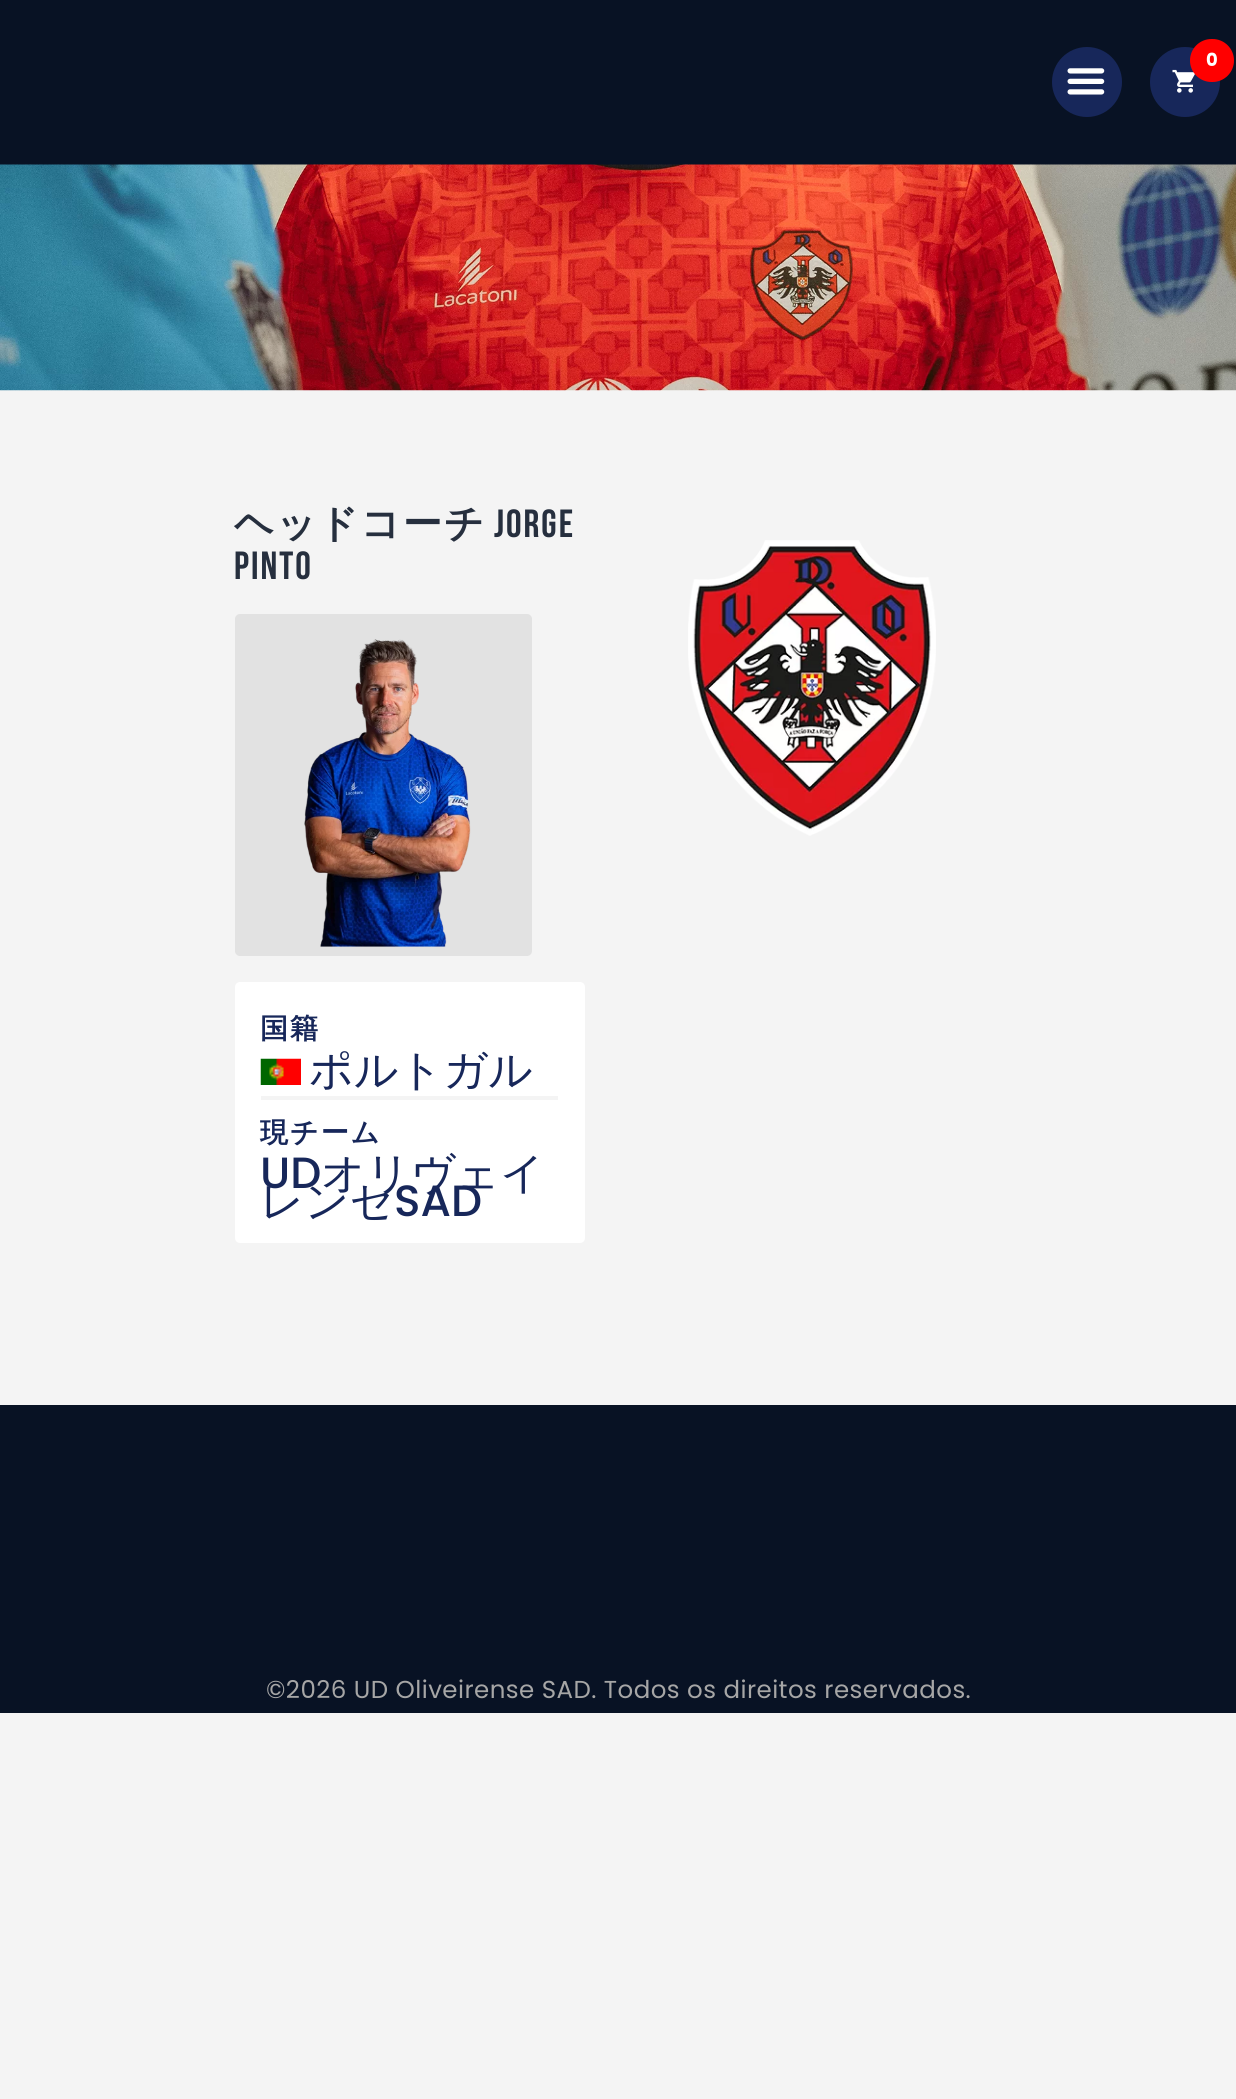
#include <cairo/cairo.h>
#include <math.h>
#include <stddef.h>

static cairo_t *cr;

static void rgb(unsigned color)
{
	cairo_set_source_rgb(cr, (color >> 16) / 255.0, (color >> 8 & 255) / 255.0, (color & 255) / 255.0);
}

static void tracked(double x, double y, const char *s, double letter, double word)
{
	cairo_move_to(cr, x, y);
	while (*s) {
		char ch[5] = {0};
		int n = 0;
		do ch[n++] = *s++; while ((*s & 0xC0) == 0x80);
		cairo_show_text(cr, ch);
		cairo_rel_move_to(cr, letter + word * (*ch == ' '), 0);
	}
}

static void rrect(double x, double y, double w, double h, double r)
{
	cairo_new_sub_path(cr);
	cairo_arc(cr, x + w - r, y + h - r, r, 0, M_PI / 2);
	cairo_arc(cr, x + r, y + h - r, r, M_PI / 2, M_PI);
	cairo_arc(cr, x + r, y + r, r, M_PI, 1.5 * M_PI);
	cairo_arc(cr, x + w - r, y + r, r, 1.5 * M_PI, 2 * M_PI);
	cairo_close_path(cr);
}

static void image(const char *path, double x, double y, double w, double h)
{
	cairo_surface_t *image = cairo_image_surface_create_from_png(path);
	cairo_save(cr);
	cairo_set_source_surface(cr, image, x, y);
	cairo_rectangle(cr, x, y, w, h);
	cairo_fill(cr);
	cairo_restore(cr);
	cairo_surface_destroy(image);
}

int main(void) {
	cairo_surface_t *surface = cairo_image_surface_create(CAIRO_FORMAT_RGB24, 1236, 2099);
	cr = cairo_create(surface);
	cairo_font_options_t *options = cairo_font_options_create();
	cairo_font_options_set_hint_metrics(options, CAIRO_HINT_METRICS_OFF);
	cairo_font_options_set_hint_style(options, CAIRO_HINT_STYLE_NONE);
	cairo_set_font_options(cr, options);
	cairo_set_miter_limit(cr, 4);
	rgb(0xf4f4f4);
	cairo_paint(cr);
	rgb(0x081224);
	cairo_rectangle(cr, 0, 0, 1236, 165);
	cairo_fill(cr);
	rgb(0x17275a);
	cairo_arc(cr, 1087, 82, 35, 0, 2 * M_PI);
	cairo_fill(cr);
	image("img/1.png", 1067, 68, 38, 27);
	cairo_arc(cr, 1185, 82, 35, 0, 2 * M_PI);
	cairo_fill(cr);
	image("img/2.png", 1172, 69, 23, 24);
	rgb(0xff0000);
	rrect(1190, 39, 44, 43, 21.5);
	cairo_fill(cr);
	image("img/3.png", 0, 164, 1236, 227);
	rgb(0xe2e2e2);
	rrect(235, 614, 297, 342, 5);
	cairo_fill(cr);
	image("img/4.png", 304, 639, 167, 308);
	rgb(0xffffff);
	rrect(235, 982, 350, 261, 5);
	cairo_fill(cr);
	rgb(0xf4f4f4);
	cairo_rectangle(cr, 261, 1096, 297, 4);
	cairo_fill(cr);
	image("img/5.png", 260, 1058, 41, 27);
	image("img/6.png", 688, 540, 248, 296);
	rgb(0x081224);
	cairo_rectangle(cr, 0, 1405, 1236, 308);
	cairo_fill(cr);
	cairo_select_font_face(cr, "Poppins", CAIRO_FONT_SLANT_NORMAL, CAIRO_FONT_WEIGHT_BOLD);
	cairo_set_font_size(cr, 18);
	rgb(0xffffff);
	cairo_move_to(cr, 1206, 66);
	cairo_show_text(cr, "0");
	cairo_select_font_face(cr, "WenQuanYi Zen Hei", CAIRO_FONT_SLANT_NORMAL, CAIRO_FONT_WEIGHT_BOLD);
	cairo_set_font_size(cr, 39.25);
	rgb(0x262f3e);
	tracked(234, 537, "ヘッドコーチ", 2, 0);
	cairo_select_font_face(cr, "Bebas Neue", CAIRO_FONT_SLANT_NORMAL, CAIRO_FONT_WEIGHT_BOLD);
	tracked(494, 537, "Jorge", 2, 0);
	tracked(234, 579, "Pinto", 2, 0);
	cairo_select_font_face(cr, "WenQuanYi Zen Hei", CAIRO_FONT_SLANT_NORMAL, CAIRO_FONT_WEIGHT_BOLD);
	cairo_set_font_size(cr, 28);
	rgb(0x17275a);
	tracked(260, 1038, "国籍", 2, 0);
	cairo_select_font_face(cr, "WenQuanYi Zen Hei Medium", CAIRO_FONT_SLANT_NORMAL, CAIRO_FONT_WEIGHT_NORMAL);
	cairo_set_font_size(cr, 43.75);
	cairo_move_to(cr, 309, 1085);
	cairo_show_text(cr, "ポルトガル");
	cairo_select_font_face(cr, "WenQuanYi Zen Hei", CAIRO_FONT_SLANT_NORMAL, CAIRO_FONT_WEIGHT_BOLD);
	cairo_set_font_size(cr, 28);
	tracked(260, 1142, "現チーム", 2, 0);
	cairo_select_font_face(cr, "Poppins Medium", CAIRO_FONT_SLANT_NORMAL, CAIRO_FONT_WEIGHT_NORMAL);
	cairo_set_font_size(cr, 43.75);
	cairo_move_to(cr, 260, 1188);
	cairo_show_text(cr, "UD");
	cairo_select_font_face(cr, "WenQuanYi Zen Hei Medium", CAIRO_FONT_SLANT_NORMAL, CAIRO_FONT_WEIGHT_NORMAL);
	cairo_move_to(cr, 321, 1188);
	cairo_show_text(cr, "オリヴェイ");
	cairo_move_to(cr, 260, 1216);
	cairo_show_text(cr, "レンセ");
	cairo_select_font_face(cr, "Poppins Medium", CAIRO_FONT_SLANT_NORMAL, CAIRO_FONT_WEIGHT_NORMAL);
	cairo_move_to(cr, 394, 1216);
	cairo_show_text(cr, "SAD");
	cairo_select_font_face(cr, "Poppins", CAIRO_FONT_SLANT_NORMAL, CAIRO_FONT_WEIGHT_NORMAL);
	cairo_set_font_size(cr, 24.5);
	rgb(0xa6a6a6);
	tracked(266, 1698, "©2026 UD Oliveirense SAD. Todos os direitos reservados.", 0.45, 0);
	cairo_surface_write_to_png(surface, "page.png");
	cairo_font_options_destroy(options);
	cairo_destroy(cr);
	cairo_surface_destroy(surface);
	return 0;
}
